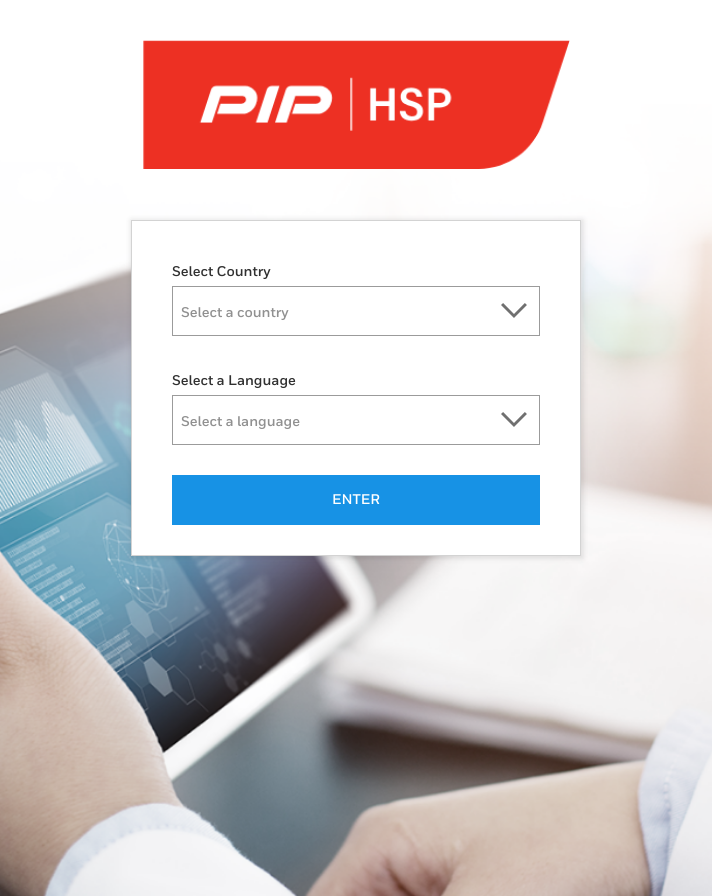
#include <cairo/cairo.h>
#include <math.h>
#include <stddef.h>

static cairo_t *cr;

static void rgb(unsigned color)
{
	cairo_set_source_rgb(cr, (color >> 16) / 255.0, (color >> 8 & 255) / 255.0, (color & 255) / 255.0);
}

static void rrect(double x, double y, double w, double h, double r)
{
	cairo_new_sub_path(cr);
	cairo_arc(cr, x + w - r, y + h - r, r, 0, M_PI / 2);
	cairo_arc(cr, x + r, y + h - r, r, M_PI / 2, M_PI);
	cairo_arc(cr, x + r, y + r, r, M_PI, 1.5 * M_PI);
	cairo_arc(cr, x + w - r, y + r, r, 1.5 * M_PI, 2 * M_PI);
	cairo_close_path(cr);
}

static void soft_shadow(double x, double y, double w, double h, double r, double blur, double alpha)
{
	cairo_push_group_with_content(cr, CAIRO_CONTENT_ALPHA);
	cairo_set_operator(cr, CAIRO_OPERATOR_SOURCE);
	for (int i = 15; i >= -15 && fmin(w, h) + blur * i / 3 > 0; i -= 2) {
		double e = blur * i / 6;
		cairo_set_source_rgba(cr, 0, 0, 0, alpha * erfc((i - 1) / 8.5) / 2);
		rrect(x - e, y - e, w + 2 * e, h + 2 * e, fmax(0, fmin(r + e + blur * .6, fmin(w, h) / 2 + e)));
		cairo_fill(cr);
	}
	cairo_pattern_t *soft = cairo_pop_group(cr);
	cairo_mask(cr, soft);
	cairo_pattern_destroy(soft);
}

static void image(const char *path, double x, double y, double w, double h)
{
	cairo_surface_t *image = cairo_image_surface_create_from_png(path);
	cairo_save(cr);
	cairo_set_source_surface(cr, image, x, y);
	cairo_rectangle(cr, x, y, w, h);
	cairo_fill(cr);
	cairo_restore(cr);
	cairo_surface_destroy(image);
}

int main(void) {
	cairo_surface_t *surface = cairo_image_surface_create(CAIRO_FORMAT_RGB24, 712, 896);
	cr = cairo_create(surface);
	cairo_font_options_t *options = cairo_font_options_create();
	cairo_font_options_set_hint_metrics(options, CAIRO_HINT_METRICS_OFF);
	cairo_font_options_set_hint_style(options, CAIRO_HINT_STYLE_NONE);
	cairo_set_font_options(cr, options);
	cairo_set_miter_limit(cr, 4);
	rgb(0xffffff);
	cairo_paint(cr);
	image("img/1.png", 0, 0, 712, 896);
	image("img/2.png", 143, 40, 427, 129);
	rgb(0x323232);
	soft_shadow(131, 220, 452, 338, 0, 3, 0.15);
	rgb(0xffffff);
	cairo_rectangle(cr, 131.5, 220.5, 449, 335);
	cairo_fill_preserve(cr);
	rgb(0xd3d3d3);
	cairo_set_line_width(cr, 1);
	cairo_stroke(cr);
	cairo_rectangle(cr, 172.5, 286.5, 367, 49);
	rgb(0x9b9b9b);
	cairo_stroke(cr);
	image("img/3.png", 501, 303, 26, 15);
	cairo_rectangle(cr, 172.5, 395.5, 367, 49);
	cairo_stroke(cr);
	image("img/3.png", 501, 412, 26, 15);
	rgb(0x1792e5);
	cairo_rectangle(cr, 172, 475, 368, 50);
	cairo_fill(cr);
	cairo_select_font_face(cr, "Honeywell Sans", CAIRO_FONT_SLANT_NORMAL, CAIRO_FONT_WEIGHT_BOLD);
	cairo_set_font_size(cr, 14);
	rgb(0x303030);
	cairo_move_to(cr, 172, 276);
	cairo_show_text(cr, "Select Country");
	rgb(0x909090);
	cairo_move_to(cr, 181, 317);
	cairo_show_text(cr, "Select a country");
	rgb(0x303030);
	cairo_move_to(cr, 172, 385);
	cairo_show_text(cr, "Select a Language");
	rgb(0x909090);
	cairo_move_to(cr, 181, 426);
	cairo_show_text(cr, "Select a language");
	rgb(0xffffff);
	cairo_move_to(cr, 332, 504);
	cairo_show_text(cr, "ENTER");
	cairo_surface_write_to_png(surface, "page.png");
	cairo_font_options_destroy(options);
	cairo_destroy(cr);
	cairo_surface_destroy(surface);
	return 0;
}
